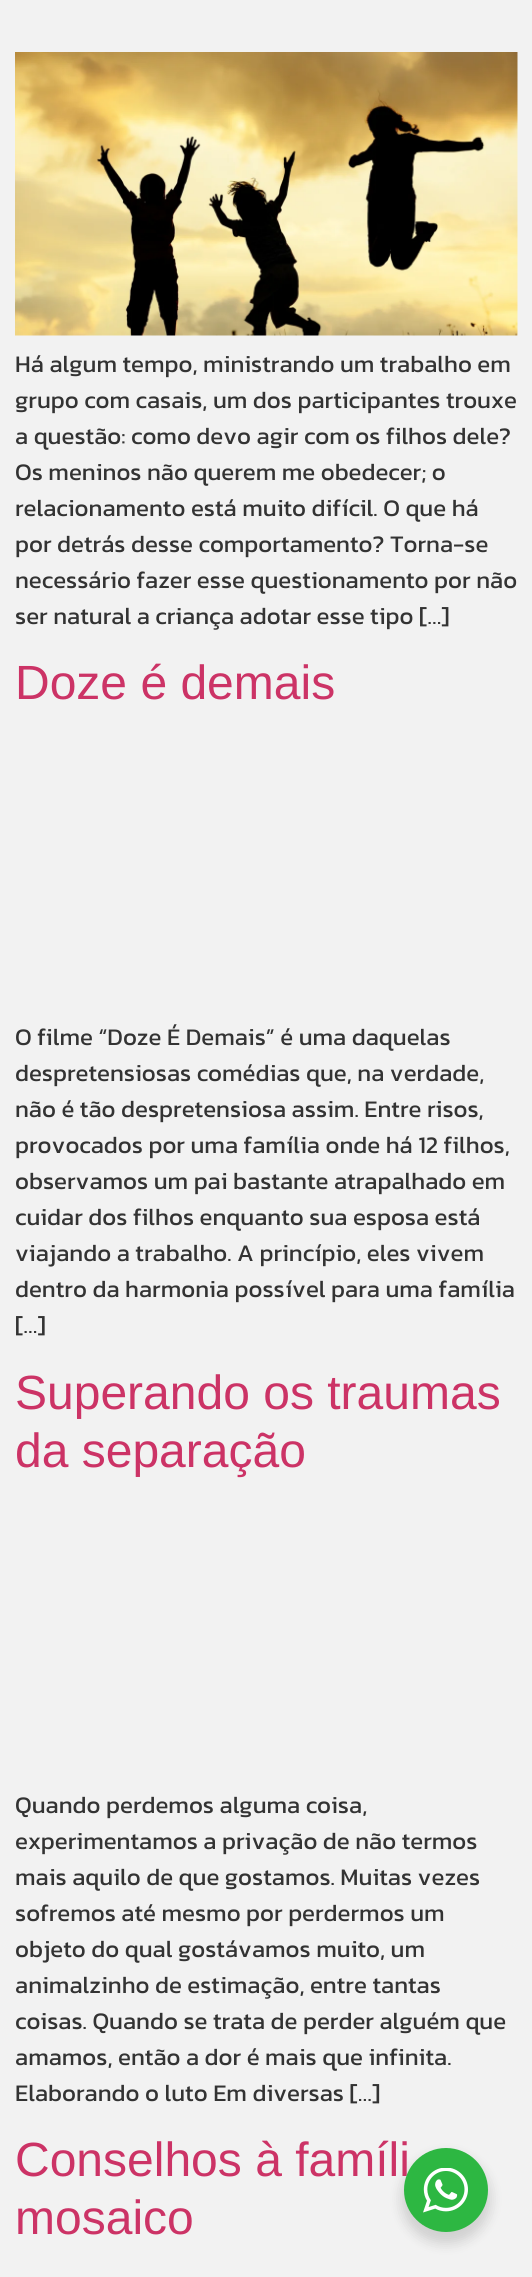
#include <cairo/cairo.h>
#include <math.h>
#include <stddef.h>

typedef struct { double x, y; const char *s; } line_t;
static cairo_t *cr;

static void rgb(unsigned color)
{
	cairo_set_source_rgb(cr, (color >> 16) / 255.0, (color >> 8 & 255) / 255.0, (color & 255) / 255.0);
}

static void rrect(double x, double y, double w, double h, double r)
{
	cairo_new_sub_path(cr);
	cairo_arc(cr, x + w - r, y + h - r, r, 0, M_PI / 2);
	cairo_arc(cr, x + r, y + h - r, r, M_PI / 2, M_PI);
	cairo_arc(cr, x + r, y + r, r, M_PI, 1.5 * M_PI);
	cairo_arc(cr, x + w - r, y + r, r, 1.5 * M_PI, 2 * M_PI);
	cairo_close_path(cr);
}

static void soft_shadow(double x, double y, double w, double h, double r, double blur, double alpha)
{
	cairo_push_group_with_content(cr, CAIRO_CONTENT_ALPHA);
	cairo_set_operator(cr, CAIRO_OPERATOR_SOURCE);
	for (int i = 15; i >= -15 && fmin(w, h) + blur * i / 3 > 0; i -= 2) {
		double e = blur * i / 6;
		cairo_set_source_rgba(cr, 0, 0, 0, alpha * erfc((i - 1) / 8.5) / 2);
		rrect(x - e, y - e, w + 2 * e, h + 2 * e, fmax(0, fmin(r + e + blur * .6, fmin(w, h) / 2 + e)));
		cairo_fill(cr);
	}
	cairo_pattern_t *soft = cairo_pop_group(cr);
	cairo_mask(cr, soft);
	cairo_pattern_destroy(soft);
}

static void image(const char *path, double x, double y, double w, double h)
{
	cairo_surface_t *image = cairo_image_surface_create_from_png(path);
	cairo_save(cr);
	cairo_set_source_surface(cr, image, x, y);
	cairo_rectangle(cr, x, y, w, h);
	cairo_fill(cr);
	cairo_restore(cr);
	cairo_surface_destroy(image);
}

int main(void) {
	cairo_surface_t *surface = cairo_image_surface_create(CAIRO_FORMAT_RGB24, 532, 2277);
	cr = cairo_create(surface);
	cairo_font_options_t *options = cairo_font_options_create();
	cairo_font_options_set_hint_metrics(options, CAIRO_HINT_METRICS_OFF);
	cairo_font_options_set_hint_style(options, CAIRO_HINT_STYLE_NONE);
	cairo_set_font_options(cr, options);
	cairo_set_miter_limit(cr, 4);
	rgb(0xf2f2f2);
	cairo_paint(cr);
	image("img/1.png", 15, 52, 503, 284);
	rgb(0x000000);
	soft_shadow(401, 2154, 90, 90, 45, 6, 0.14);
	cairo_select_font_face(cr, "Kanit", CAIRO_FONT_SLANT_NORMAL, CAIRO_FONT_WEIGHT_NORMAL);
	cairo_set_font_size(cr, 24);
	rgb(0x333333);
	{
		static const line_t items[] = {
			{15, 372, "Há algum tempo, ministrando um trabalho em"},
			{15, 408, "grupo com casais, um dos participantes trouxe"},
			{15, 444, "a questão: como devo agir com os filhos dele?"},
			{15, 480, "Os meninos não querem me obedecer; o"},
			{15, 516, "relacionamento está muito difícil. O que há"},
			{15, 552, "por detrás desse comportamento? Torna-se"},
			{15, 588, "necessário fazer esse questionamento por não"},
			{15, 624, "ser natural a criança adotar esse tipo […]"},
		};
		for (size_t i = 0; i < sizeof items / sizeof *items; i++) {
			cairo_move_to(cr, items[i].x, items[i].y);
			cairo_show_text(cr, items[i].s);
		}
	}
	cairo_select_font_face(cr, "Liberation Sans", CAIRO_FONT_SLANT_NORMAL, CAIRO_FONT_WEIGHT_NORMAL);
	cairo_set_font_size(cr, 48);
	rgb(0xcc3366);
	cairo_move_to(cr, 15, 699);
	cairo_show_text(cr, "Doze é demais");
	cairo_select_font_face(cr, "Kanit", CAIRO_FONT_SLANT_NORMAL, CAIRO_FONT_WEIGHT_NORMAL);
	cairo_set_font_size(cr, 24);
	rgb(0x333333);
	{
		static const line_t items[] = {
			{15, 1045, "O filme “Doze É Demais” é uma daquelas"},
			{15, 1081, "despretensiosas comédias que, na verdade,"},
			{15, 1117, "não é tão despretensiosa assim. Entre risos,"},
			{15, 1153, "provocados por uma família onde há 12 filhos,"},
			{15, 1189, "observamos um pai bastante atrapalhado em"},
			{15, 1225, "cuidar dos filhos enquanto sua esposa está"},
			{15, 1261, "viajando a trabalho. A princípio, eles vivem"},
			{15, 1297, "dentro da harmonia possível para uma família"},
			{15, 1333, "[…]"},
		};
		for (size_t i = 0; i < sizeof items / sizeof *items; i++) {
			cairo_move_to(cr, items[i].x, items[i].y);
			cairo_show_text(cr, items[i].s);
		}
	}
	cairo_select_font_face(cr, "Liberation Sans", CAIRO_FONT_SLANT_NORMAL, CAIRO_FONT_WEIGHT_NORMAL);
	cairo_set_font_size(cr, 48);
	rgb(0xcc3366);
	cairo_move_to(cr, 15, 1409);
	cairo_show_text(cr, "Superando os traumas");
	cairo_move_to(cr, 15, 1467);
	cairo_show_text(cr, "da separação");
	cairo_select_font_face(cr, "Kanit", CAIRO_FONT_SLANT_NORMAL, CAIRO_FONT_WEIGHT_NORMAL);
	cairo_set_font_size(cr, 24);
	rgb(0x333333);
	{
		static const line_t items[] = {
			{15, 1813, "Quando perdemos alguma coisa,"},
			{15, 1849, "experimentamos a privação de não termos"},
			{15, 1885, "mais aquilo de que gostamos. Muitas vezes"},
			{15, 1921, "sofremos até mesmo por perdermos um"},
			{15, 1957, "objeto do qual gostávamos muito, um"},
			{15, 1993, "animalzinho de estimação, entre tantas"},
			{15, 2029, "coisas. Quando se trata de perder alguém que"},
			{15, 2065, "amamos, então a dor é mais que infinita."},
			{15, 2101, "Elaborando o luto Em diversas […]"},
		};
		for (size_t i = 0; i < sizeof items / sizeof *items; i++) {
			cairo_move_to(cr, items[i].x, items[i].y);
			cairo_show_text(cr, items[i].s);
		}
	}
	cairo_select_font_face(cr, "Liberation Sans", CAIRO_FONT_SLANT_NORMAL, CAIRO_FONT_WEIGHT_NORMAL);
	cairo_set_font_size(cr, 48);
	rgb(0xcc3366);
	cairo_move_to(cr, 15, 2176);
	cairo_show_text(cr, "Conselhos à famíli");
	cairo_move_to(cr, 15, 2234);
	cairo_show_text(cr, "mosaico");
	rgb(0x2db742);
	cairo_new_path(cr);
	cairo_arc(cr, 446, 2190, 42, 0, 2 * M_PI);
	cairo_fill(cr);
	image("img/2.png", 423, 2168, 45, 45);
	cairo_surface_write_to_png(surface, "page.png");
	cairo_font_options_destroy(options);
	cairo_destroy(cr);
	cairo_surface_destroy(surface);
	return 0;
}
